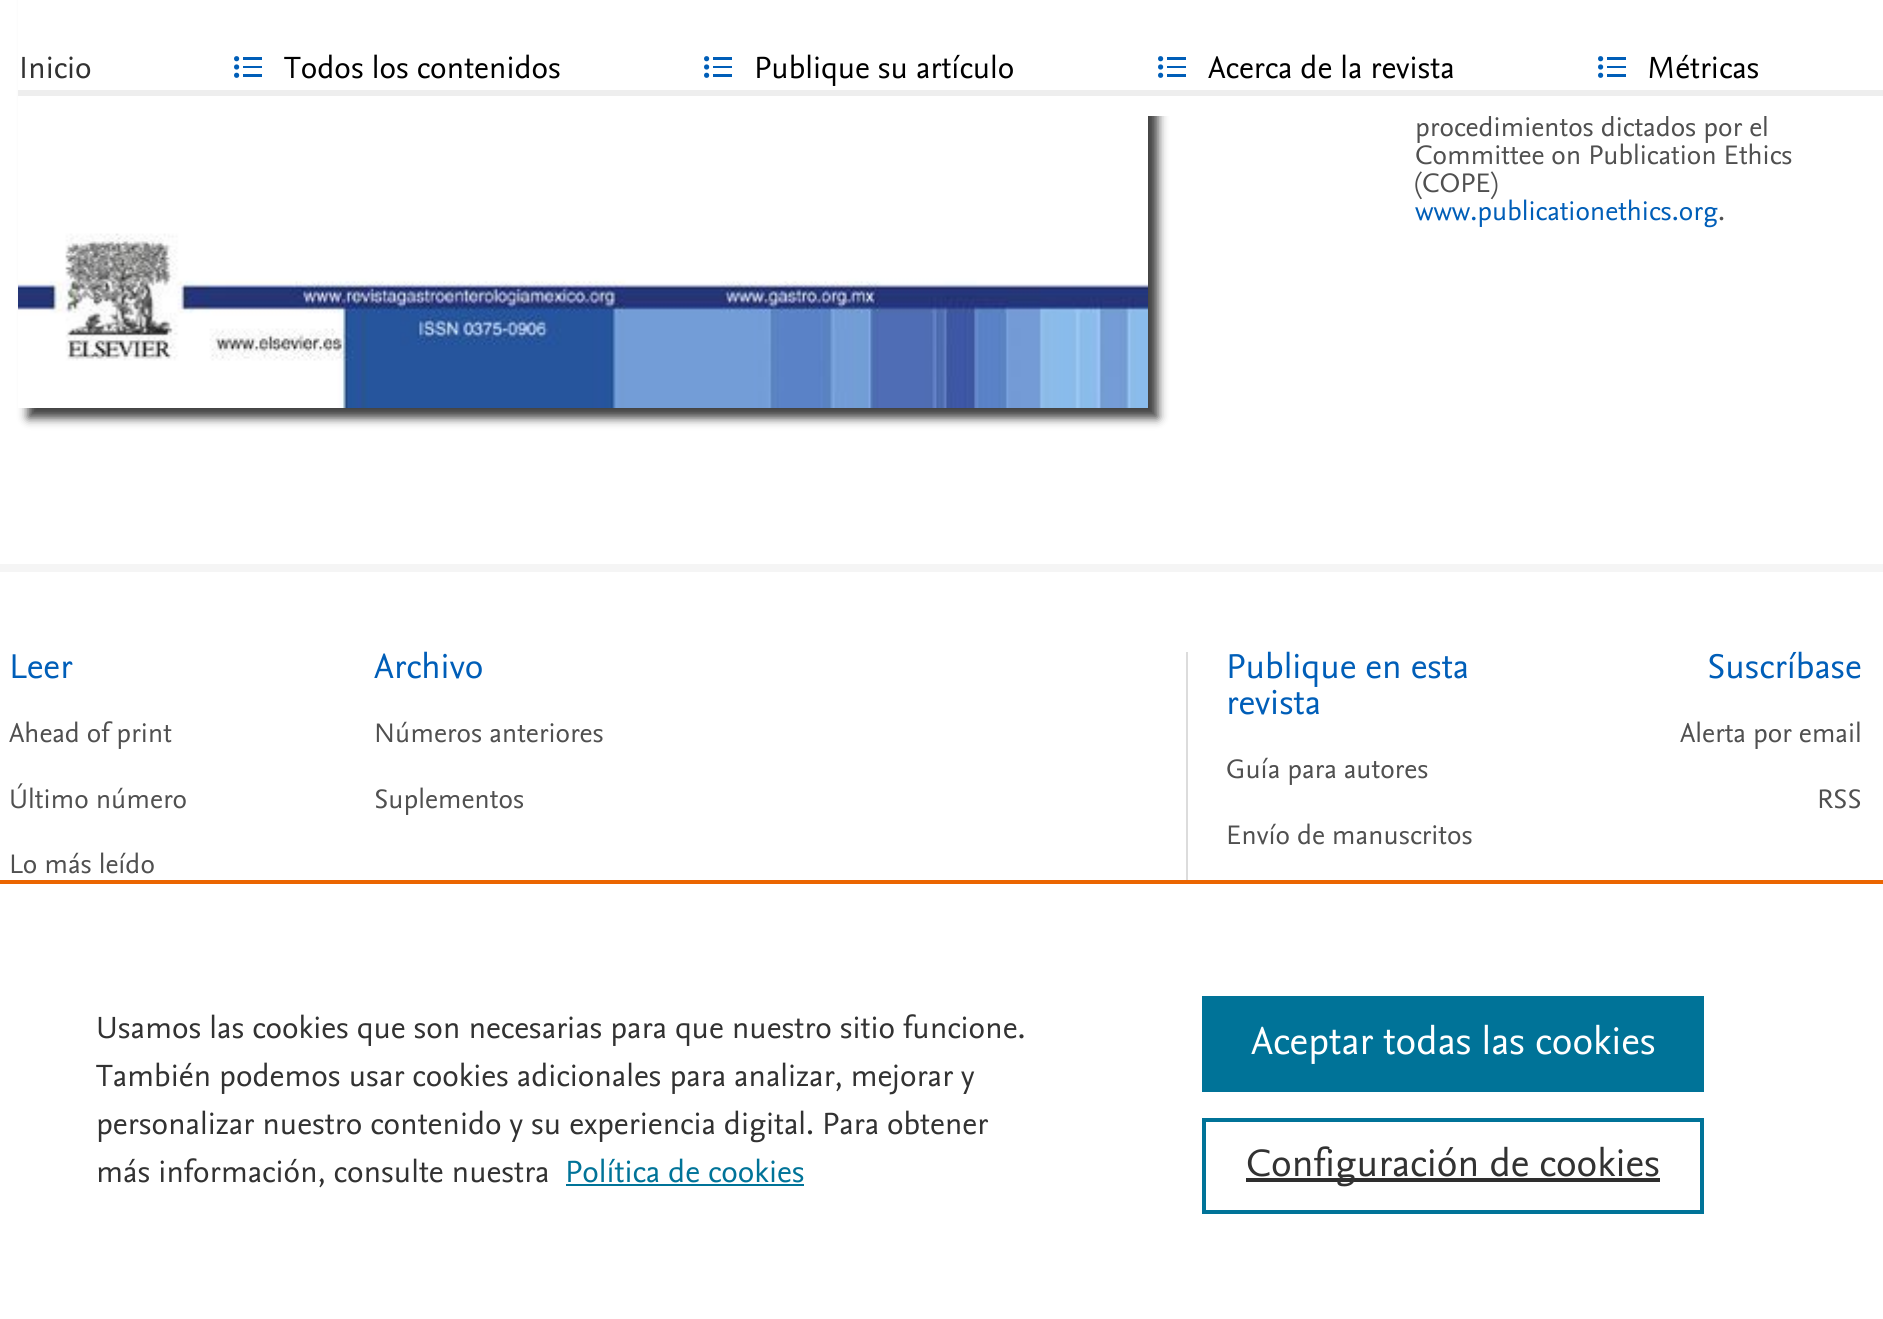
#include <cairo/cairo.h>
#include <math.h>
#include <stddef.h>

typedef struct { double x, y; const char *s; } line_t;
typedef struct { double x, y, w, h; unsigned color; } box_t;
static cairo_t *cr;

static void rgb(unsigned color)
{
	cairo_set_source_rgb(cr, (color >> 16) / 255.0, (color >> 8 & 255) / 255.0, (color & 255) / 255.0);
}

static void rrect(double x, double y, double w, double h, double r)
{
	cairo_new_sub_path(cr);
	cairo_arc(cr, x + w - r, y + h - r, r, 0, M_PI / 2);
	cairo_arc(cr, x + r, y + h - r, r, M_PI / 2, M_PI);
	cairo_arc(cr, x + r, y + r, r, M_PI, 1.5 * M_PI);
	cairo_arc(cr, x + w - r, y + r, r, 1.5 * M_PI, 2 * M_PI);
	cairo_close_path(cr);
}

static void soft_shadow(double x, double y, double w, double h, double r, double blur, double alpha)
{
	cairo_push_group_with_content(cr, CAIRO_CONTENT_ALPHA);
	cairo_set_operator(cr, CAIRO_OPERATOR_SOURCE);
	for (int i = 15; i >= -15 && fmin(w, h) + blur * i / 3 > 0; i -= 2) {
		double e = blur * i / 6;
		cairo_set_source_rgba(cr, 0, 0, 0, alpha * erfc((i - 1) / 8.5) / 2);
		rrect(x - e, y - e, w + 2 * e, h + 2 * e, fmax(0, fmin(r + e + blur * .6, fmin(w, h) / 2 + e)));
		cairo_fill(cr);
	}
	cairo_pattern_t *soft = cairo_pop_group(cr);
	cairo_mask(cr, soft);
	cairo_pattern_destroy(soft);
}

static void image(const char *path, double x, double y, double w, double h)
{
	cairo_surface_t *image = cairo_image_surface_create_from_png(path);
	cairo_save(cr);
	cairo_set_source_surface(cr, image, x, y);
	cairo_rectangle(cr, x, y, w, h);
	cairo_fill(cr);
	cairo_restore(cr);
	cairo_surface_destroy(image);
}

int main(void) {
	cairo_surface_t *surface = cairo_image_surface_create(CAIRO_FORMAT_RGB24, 1883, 1319);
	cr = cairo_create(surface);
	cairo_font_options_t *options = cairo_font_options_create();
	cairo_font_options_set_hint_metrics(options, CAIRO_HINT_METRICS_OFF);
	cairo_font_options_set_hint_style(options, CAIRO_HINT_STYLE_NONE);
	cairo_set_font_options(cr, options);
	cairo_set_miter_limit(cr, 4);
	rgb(0xffffff);
	cairo_paint(cr);
	cairo_save(cr);
	cairo_set_fill_rule(cr, CAIRO_FILL_RULE_EVEN_ODD);
	cairo_new_path(cr);
	cairo_move_to(cr, 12, 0);
	cairo_line_to(cr, 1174, 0);
	cairo_line_to(cr, 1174, 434);
	cairo_line_to(cr, 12, 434);
	cairo_close_path(cr);
	cairo_move_to(cr, 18, -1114);
	cairo_line_to(cr, 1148, -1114);
	cairo_line_to(cr, 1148, 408);
	cairo_line_to(cr, 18, 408);
	cairo_close_path(cr);
	cairo_clip(cr);
	rgb(0x000000);
	soft_shadow(28, -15, 1130, 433, 0, 5, 0.75);
	cairo_restore(cr);
	{
		static const box_t items[] = {
			{243, 57, 19, 3, 0x005eb8},
			{243, 66, 19, 2, 0x005eb8},
			{243, 74, 19, 3, 0x005eb8},
		};
		for (size_t i = 0; i < sizeof items / sizeof *items; i++) {
			rgb(items[i].color);
			cairo_rectangle(cr, items[i].x, items[i].y, items[i].w, items[i].h);
			cairo_fill(cr);
		}
	}
	cairo_arc(cr, 236.6, 58.7, 2.6, 0, 2 * M_PI);
	cairo_fill(cr);
	cairo_arc(cr, 236.6, 67, 2.6, 0, 2 * M_PI);
	cairo_fill(cr);
	cairo_arc(cr, 236.6, 75.3, 2.6, 0, 2 * M_PI);
	cairo_fill(cr);
	{
		static const box_t items[] = {
			{713, 57, 19, 3, 0x005eb8},
			{713, 66, 19, 2, 0x005eb8},
			{713, 74, 19, 3, 0x005eb8},
		};
		for (size_t i = 0; i < sizeof items / sizeof *items; i++) {
			rgb(items[i].color);
			cairo_rectangle(cr, items[i].x, items[i].y, items[i].w, items[i].h);
			cairo_fill(cr);
		}
	}
	cairo_arc(cr, 706.6, 58.7, 2.6, 0, 2 * M_PI);
	cairo_fill(cr);
	cairo_arc(cr, 706.6, 67, 2.6, 0, 2 * M_PI);
	cairo_fill(cr);
	cairo_arc(cr, 706.6, 75.3, 2.6, 0, 2 * M_PI);
	cairo_fill(cr);
	image("img/1.png", 18, 233, 1130, 175);
	{
		static const box_t items[] = {
			{0, 564, 1883, 8, 0xf5f5f5},
			{1186, 652, 2, 228, 0xdcdcdc},
			{0, 880, 1883, 4, 0xeb6500},
			{566, 1184, 238, 2, 0x007398},
			{1202, 996, 502, 96, 0x007398},
		};
		for (size_t i = 0; i < sizeof items / sizeof *items; i++) {
			rgb(items[i].color);
			cairo_rectangle(cr, items[i].x, items[i].y, items[i].w, items[i].h);
			cairo_fill(cr);
		}
	}
	cairo_rectangle(cr, 1204, 1120, 498, 92);
	cairo_set_line_width(cr, 4);
	cairo_stroke(cr);
	rgb(0x2e2e2e);
	cairo_rectangle(cr, 1246, 1178, 414, 4);
	cairo_fill(cr);
	cairo_select_font_face(cr, "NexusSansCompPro", CAIRO_FONT_SLANT_NORMAL, CAIRO_FONT_WEIGHT_NORMAL);
	cairo_set_font_size(cr, 32);
	rgb(0x323232);
	cairo_move_to(cr, 19, 78);
	cairo_show_text(cr, "Inicio");
	rgb(0x000000);
	cairo_move_to(cr, 284, 78);
	cairo_show_text(cr, "Todos los contenidos");
	cairo_move_to(cr, 754, 78);
	cairo_show_text(cr, "Publique su artículo");
	cairo_set_font_size(cr, 28);
	rgb(0x505050);
	cairo_move_to(cr, 1415, 136);
	cairo_show_text(cr, "procedimientos dictados por el");
	rgb(0xffffff);
	cairo_rectangle(cr, 1148, 0, 619, 116);
	cairo_fill(cr);
	cairo_set_font_size(cr, 32);
	rgb(0x000000);
	cairo_move_to(cr, 1647, 78);
	cairo_show_text(cr, "Métricas");
	rgb(0x005eb8);
	cairo_new_path(cr);
	cairo_arc(cr, 1600.6, 75.3, 2.6, 0, 2 * M_PI);
	cairo_fill(cr);
	cairo_arc(cr, 1600.6, 67, 2.6, 0, 2 * M_PI);
	cairo_fill(cr);
	cairo_arc(cr, 1600.6, 58.7, 2.6, 0, 2 * M_PI);
	cairo_fill(cr);
	{
		static const box_t items[] = {
			{1607, 74, 19, 3, 0x005eb8},
			{1607, 66, 19, 2, 0x005eb8},
			{1607, 57, 19, 3, 0x005eb8},
		};
		for (size_t i = 0; i < sizeof items / sizeof *items; i++) {
			rgb(items[i].color);
			cairo_rectangle(cr, items[i].x, items[i].y, items[i].w, items[i].h);
			cairo_fill(cr);
		}
	}
	rgb(0x000000);
	cairo_move_to(cr, 1208, 78);
	cairo_show_text(cr, "Acerca de la revista");
	rgb(0x005eb8);
	cairo_new_path(cr);
	cairo_arc(cr, 1160.6, 75.3, 2.6, 0, 2 * M_PI);
	cairo_fill(cr);
	cairo_arc(cr, 1160.6, 67, 2.6, 0, 2 * M_PI);
	cairo_fill(cr);
	cairo_arc(cr, 1160.6, 58.7, 2.6, 0, 2 * M_PI);
	cairo_fill(cr);
	{
		static const box_t items[] = {
			{1167, 74, 19, 3, 0x005eb8},
			{1167, 66, 19, 2, 0x005eb8},
			{1167, 57, 19, 3, 0x005eb8},
			{18, 90, 1865, 6, 0xeeeeee},
		};
		for (size_t i = 0; i < sizeof items / sizeof *items; i++) {
			rgb(items[i].color);
			cairo_rectangle(cr, items[i].x, items[i].y, items[i].w, items[i].h);
			cairo_fill(cr);
		}
	}
	cairo_set_font_size(cr, 28);
	rgb(0x505050);
	cairo_move_to(cr, 1415, 164);
	cairo_show_text(cr, "Committee on Publication Ethics");
	cairo_move_to(cr, 1415, 192);
	cairo_show_text(cr, "(COPE)");
	rgb(0x005eb8);
	cairo_move_to(cr, 1415, 220);
	cairo_show_text(cr, "www.publicationethics.org");
	rgb(0x505050);
	cairo_move_to(cr, 1718, 220);
	cairo_show_text(cr, ".");
	cairo_set_font_size(cr, 36);
	rgb(0x005eb8);
	cairo_move_to(cr, 9, 678);
	cairo_show_text(cr, "Leer");
	cairo_set_font_size(cr, 28);
	rgb(0x505050);
	{
		static const line_t items[] = {
			{9, 742, "Ahead of print"},
			{9, 808, "Último número"},
			{9, 873, "Lo más leído"},
		};
		for (size_t i = 0; i < sizeof items / sizeof *items; i++) {
			cairo_move_to(cr, items[i].x, items[i].y);
			cairo_show_text(cr, items[i].s);
		}
	}
	cairo_set_font_size(cr, 36);
	rgb(0x005eb8);
	cairo_move_to(cr, 374, 678);
	cairo_show_text(cr, "Archivo");
	cairo_set_font_size(cr, 28);
	rgb(0x505050);
	cairo_move_to(cr, 374, 742);
	cairo_show_text(cr, "Números anteriores");
	cairo_move_to(cr, 374, 808);
	cairo_show_text(cr, "Suplementos");
	cairo_set_font_size(cr, 36);
	rgb(0x005eb8);
	cairo_move_to(cr, 1226, 678);
	cairo_show_text(cr, "Publique en esta");
	cairo_move_to(cr, 1226, 714);
	cairo_show_text(cr, "revista");
	cairo_set_font_size(cr, 28);
	rgb(0x505050);
	cairo_move_to(cr, 1226, 778);
	cairo_show_text(cr, "Guía para autores");
	cairo_move_to(cr, 1226, 844);
	cairo_show_text(cr, "Envío de manuscritos");
	cairo_set_font_size(cr, 36);
	rgb(0x005eb8);
	cairo_move_to(cr, 1707, 678);
	cairo_show_text(cr, "Suscríbase");
	cairo_set_font_size(cr, 28);
	rgb(0x505050);
	cairo_move_to(cr, 1680, 742);
	cairo_show_text(cr, "Alerta por email");
	cairo_move_to(cr, 1817, 808);
	cairo_show_text(cr, "RSS");
	cairo_set_font_size(cr, 32);
	rgb(0x323232);
	{
		static const line_t items[] = {
			{96, 1038, "Usamos las cookies que son necesarias para que nuestro sitio funcione."},
			{96, 1086, "También podemos usar cookies adicionales para analizar, mejorar y"},
			{96, 1134, "personalizar nuestro contenido y su experiencia digital. Para obtener"},
			{96, 1182, "más información, consulte nuestra"},
		};
		for (size_t i = 0; i < sizeof items / sizeof *items; i++) {
			cairo_move_to(cr, items[i].x, items[i].y);
			cairo_show_text(cr, items[i].s);
		}
	}
	rgb(0x007398);
	cairo_move_to(cr, 565, 1182);
	cairo_show_text(cr, "Política de cookies");
	cairo_set_font_size(cr, 40);
	rgb(0xffffff);
	cairo_move_to(cr, 1251, 1054);
	cairo_show_text(cr, "Aceptar todas las cookies");
	rgb(0x323232);
	cairo_move_to(cr, 1246, 1176);
	cairo_show_text(cr, "Configuración de cookies");
	cairo_surface_write_to_png(surface, "page.png");
	cairo_font_options_destroy(options);
	cairo_destroy(cr);
	cairo_surface_destroy(surface);
	return 0;
}
